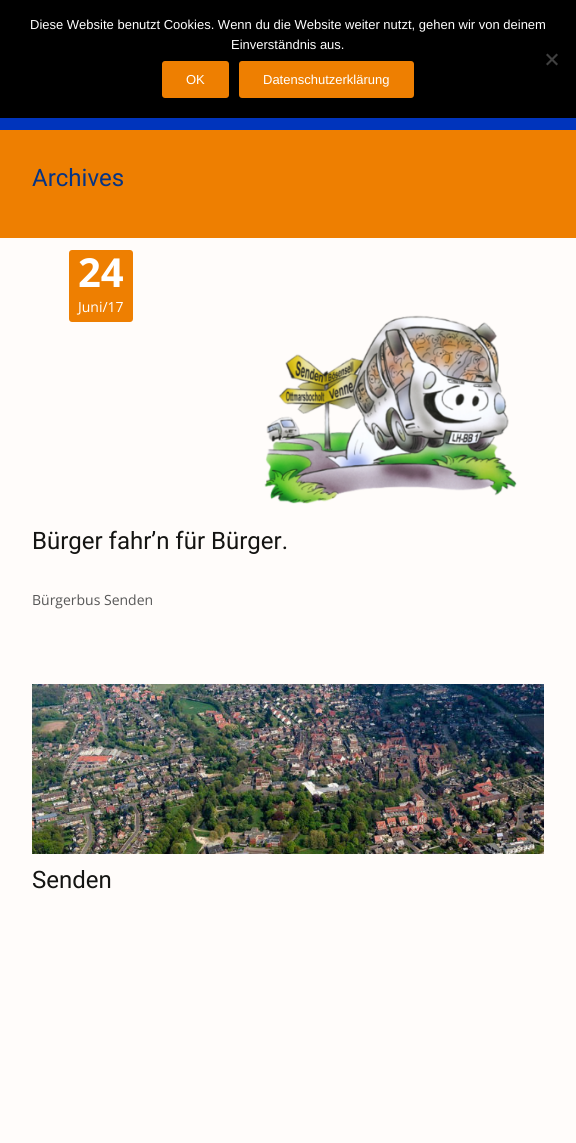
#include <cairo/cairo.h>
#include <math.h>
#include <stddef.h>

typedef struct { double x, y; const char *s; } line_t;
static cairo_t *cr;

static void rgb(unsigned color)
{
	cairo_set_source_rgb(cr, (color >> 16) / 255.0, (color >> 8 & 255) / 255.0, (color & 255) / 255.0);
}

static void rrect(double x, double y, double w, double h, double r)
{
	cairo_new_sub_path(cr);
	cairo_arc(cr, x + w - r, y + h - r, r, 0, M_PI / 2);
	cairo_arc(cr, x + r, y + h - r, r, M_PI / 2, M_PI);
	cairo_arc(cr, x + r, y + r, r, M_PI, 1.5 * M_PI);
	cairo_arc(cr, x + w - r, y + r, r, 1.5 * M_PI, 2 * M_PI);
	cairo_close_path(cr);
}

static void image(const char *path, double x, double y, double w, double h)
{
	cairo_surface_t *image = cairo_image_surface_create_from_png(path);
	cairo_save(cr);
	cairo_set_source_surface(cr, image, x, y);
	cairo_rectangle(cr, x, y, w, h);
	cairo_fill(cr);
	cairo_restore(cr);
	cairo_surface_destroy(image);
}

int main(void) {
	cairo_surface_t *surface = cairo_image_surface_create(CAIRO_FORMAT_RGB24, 576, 1143);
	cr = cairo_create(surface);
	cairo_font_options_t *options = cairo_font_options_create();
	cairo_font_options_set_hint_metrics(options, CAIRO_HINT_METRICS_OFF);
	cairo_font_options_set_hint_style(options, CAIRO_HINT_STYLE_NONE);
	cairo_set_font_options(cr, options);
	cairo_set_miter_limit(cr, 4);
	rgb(0xee7f01);
	cairo_paint(cr);
	rgb(0x000000);
	cairo_rectangle(cr, 0, 0, 576, 118);
	cairo_fill(cr);
	rgb(0x404040);
	cairo_new_path(cr);
	cairo_move_to(cr, 556.5, 53.5);
	cairo_line_to(cr, 558, 55);
	cairo_line_to(cr, 547.5, 65.5);
	cairo_line_to(cr, 546, 64);
	cairo_close_path(cr);
	cairo_fill(cr);
	cairo_new_path(cr);
	cairo_move_to(cr, 546, 55);
	cairo_line_to(cr, 547.5, 53.5);
	cairo_line_to(cr, 558, 64);
	cairo_line_to(cr, 556.5, 65.5);
	cairo_close_path(cr);
	cairo_fill(cr);
	rgb(0xee7f01);
	rrect(162, 61, 67, 37, 3);
	cairo_fill(cr);
	rrect(239, 61, 175, 37, 3);
	cairo_fill(cr);
	rgb(0x0034bc);
	cairo_rectangle(cr, 0, 118, 576, 12);
	cairo_fill(cr);
	rgb(0xfffcfa);
	cairo_rectangle(cr, 0, 238, 576, 905);
	cairo_fill(cr);
	rgb(0xee7f01);
	rrect(69, 250, 64, 72, 3);
	cairo_fill(cr);
	image("img/1.png", 264, 315, 253, 189);
	image("img/2.png", 32, 684, 512, 170);
	cairo_select_font_face(cr, "Liberation Sans", CAIRO_FONT_SLANT_NORMAL, CAIRO_FONT_WEIGHT_NORMAL);
	cairo_set_font_size(cr, 13);
	rgb(0xffffff);
	{
		static const line_t items[] = {
			{30, 29, "Diese Website benutzt Cookies. Wenn du die Website weiter nutzt, gehen wir von deinem"},
			{231, 49, "Einverständnis aus."},
			{186, 84, "OK"},
			{263, 84, "Datenschutzerklärung"},
		};
		for (size_t i = 0; i < sizeof items / sizeof *items; i++) {
			cairo_move_to(cr, items[i].x, items[i].y);
			cairo_show_text(cr, items[i].s);
		}
	}
	cairo_select_font_face(cr, "Roboto", CAIRO_FONT_SLANT_NORMAL, CAIRO_FONT_WEIGHT_NORMAL);
	cairo_set_font_size(cr, 24);
	rgb(0x063484);
	cairo_move_to(cr, 32, 186);
	cairo_show_text(cr, "Archives");
	cairo_select_font_face(cr, "Open Sans", CAIRO_FONT_SLANT_NORMAL, CAIRO_FONT_WEIGHT_BOLD);
	cairo_set_font_size(cr, 40);
	rgb(0xffffff);
	cairo_move_to(cr, 78, 287);
	cairo_show_text(cr, "24");
	cairo_select_font_face(cr, "Open Sans", CAIRO_FONT_SLANT_NORMAL, CAIRO_FONT_WEIGHT_NORMAL);
	cairo_set_font_size(cr, 14);
	cairo_move_to(cr, 78, 312);
	cairo_show_text(cr, "Juni/17");
	cairo_select_font_face(cr, "Roboto", CAIRO_FONT_SLANT_NORMAL, CAIRO_FONT_WEIGHT_NORMAL);
	cairo_set_font_size(cr, 24);
	rgb(0x141412);
	cairo_move_to(cr, 32, 549);
	cairo_show_text(cr, "Bürger fahr’n für Bürger.");
	cairo_select_font_face(cr, "Open Sans", CAIRO_FONT_SLANT_NORMAL, CAIRO_FONT_WEIGHT_NORMAL);
	cairo_set_font_size(cr, 14);
	rgb(0x575757);
	cairo_move_to(cr, 32, 605);
	cairo_show_text(cr, "Bürgerbus Senden");
	cairo_select_font_face(cr, "Roboto", CAIRO_FONT_SLANT_NORMAL, CAIRO_FONT_WEIGHT_NORMAL);
	cairo_set_font_size(cr, 24);
	rgb(0x141412);
	cairo_move_to(cr, 32, 888);
	cairo_show_text(cr, "Senden");
	cairo_surface_write_to_png(surface, "page.png");
	cairo_font_options_destroy(options);
	cairo_destroy(cr);
	cairo_surface_destroy(surface);
	return 0;
}
